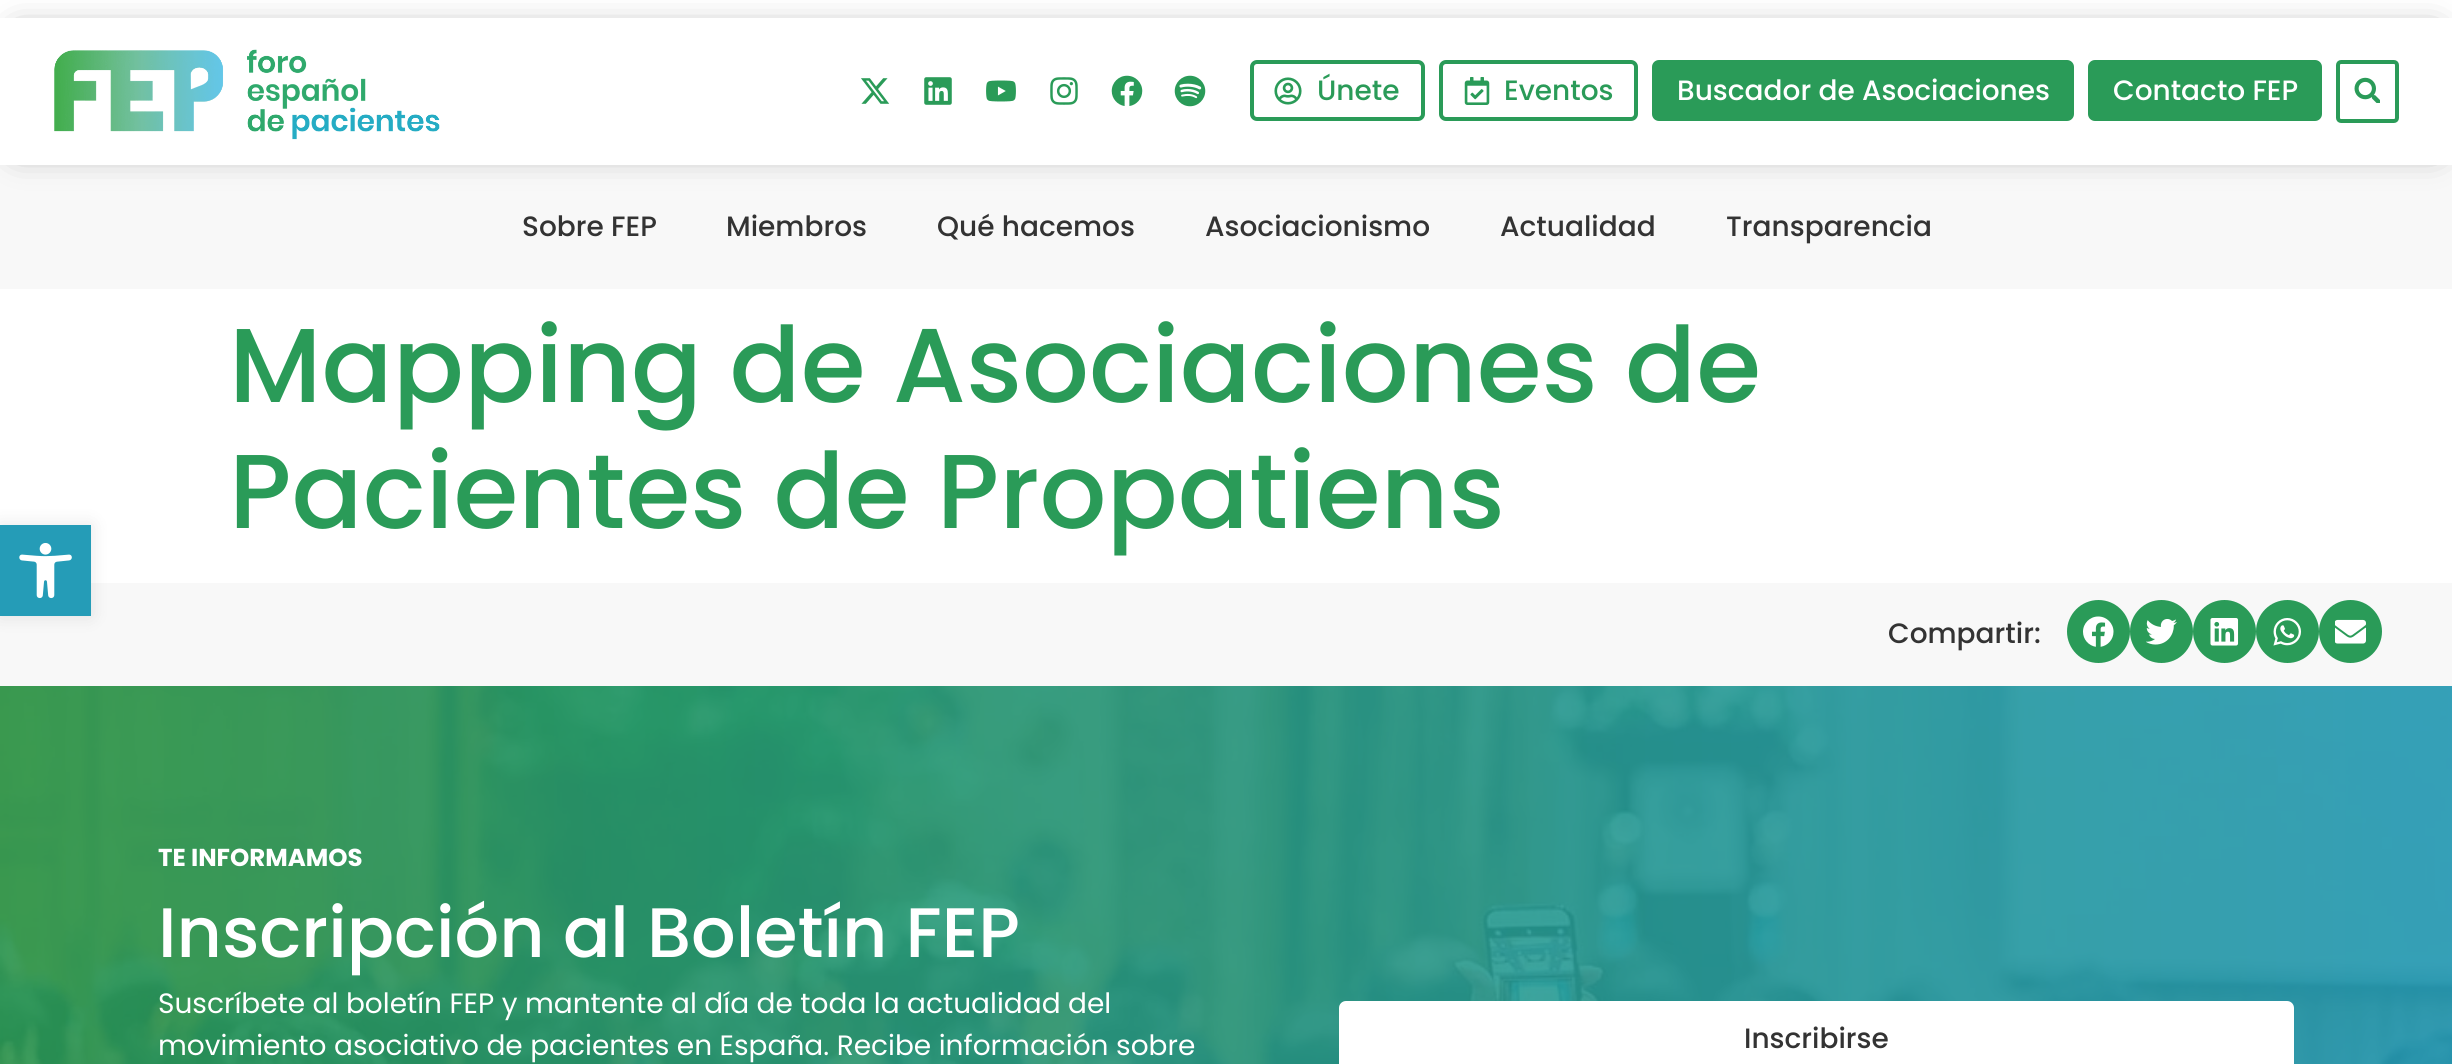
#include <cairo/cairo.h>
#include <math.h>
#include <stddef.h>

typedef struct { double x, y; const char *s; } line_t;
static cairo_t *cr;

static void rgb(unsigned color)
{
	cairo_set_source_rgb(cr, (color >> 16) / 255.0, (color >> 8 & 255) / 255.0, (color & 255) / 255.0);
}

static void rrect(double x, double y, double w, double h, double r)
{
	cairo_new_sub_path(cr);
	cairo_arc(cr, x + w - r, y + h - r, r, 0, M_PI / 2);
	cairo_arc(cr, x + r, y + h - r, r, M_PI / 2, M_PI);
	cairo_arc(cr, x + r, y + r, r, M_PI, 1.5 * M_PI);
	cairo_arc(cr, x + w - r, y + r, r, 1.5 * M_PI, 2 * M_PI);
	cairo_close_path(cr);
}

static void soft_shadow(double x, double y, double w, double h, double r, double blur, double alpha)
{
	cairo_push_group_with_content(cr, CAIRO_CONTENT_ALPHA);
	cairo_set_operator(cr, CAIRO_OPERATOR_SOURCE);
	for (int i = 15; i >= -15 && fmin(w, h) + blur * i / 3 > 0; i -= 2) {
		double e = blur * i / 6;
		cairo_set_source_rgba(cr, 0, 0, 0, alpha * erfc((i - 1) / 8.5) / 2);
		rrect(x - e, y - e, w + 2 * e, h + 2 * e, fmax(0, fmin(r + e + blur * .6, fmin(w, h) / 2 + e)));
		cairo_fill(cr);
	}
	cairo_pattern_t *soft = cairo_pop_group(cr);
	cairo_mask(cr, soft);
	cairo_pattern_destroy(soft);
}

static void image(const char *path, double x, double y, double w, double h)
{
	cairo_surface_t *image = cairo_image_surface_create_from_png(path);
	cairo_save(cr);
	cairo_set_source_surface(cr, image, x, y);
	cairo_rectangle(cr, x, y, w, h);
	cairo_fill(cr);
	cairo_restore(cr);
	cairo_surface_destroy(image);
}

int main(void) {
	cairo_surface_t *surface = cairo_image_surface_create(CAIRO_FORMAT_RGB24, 2452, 1064);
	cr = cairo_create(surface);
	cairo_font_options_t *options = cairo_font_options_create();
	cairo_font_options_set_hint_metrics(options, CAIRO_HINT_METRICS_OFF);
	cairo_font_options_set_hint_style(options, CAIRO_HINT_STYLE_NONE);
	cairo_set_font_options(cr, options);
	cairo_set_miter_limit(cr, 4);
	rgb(0xffffff);
	cairo_paint(cr);
	rgb(0xf8f8f8);
	cairo_rectangle(cr, 0, 165, 2452, 124);
	cairo_fill(cr);
	rgb(0x000000);
	soft_shadow(18, 35, 2418, 112, 0, 17.5, 0.5);
	rgb(0xffffff);
	cairo_rectangle(cr, 0, 18, 2452, 147);
	cairo_fill(cr);
	image("img/1.png", 54, 49, 386, 91);
	image("img/2.png", 861, 78, 29, 26);
	image("img/3.png", 924, 77, 28, 28);
	image("img/4.png", 986, 80, 30, 22);
	image("img/5.png", 1050, 77, 28, 28);
	image("img/6.png", 1111, 75, 32, 31);
	image("img/7.png", 1174, 75, 32, 32);
	rrect(1252, 62, 171, 57, 5);
	rgb(0x2a9b58);
	cairo_set_line_width(cr, 4);
	cairo_stroke(cr);
	image("img/8.png", 1274, 77, 28, 28);
	rrect(1441, 62, 195, 57, 5);
	cairo_stroke(cr);
	image("img/9.png", 1464, 77, 26, 28);
	rrect(1654, 62, 418, 57, 5);
	cairo_fill_preserve(cr);
	cairo_stroke(cr);
	rrect(2090, 62, 230, 57, 5);
	cairo_fill_preserve(cr);
	cairo_stroke(cr);
	rrect(2338, 62, 59, 59, 3);
	cairo_stroke(cr);
	image("img/10.png", 2354, 77, 26, 26);
	rgb(0xf8f8f8);
	cairo_rectangle(cr, 0, 583, 2452, 103);
	cairo_fill(cr);
	rgb(0x000000);
	soft_shadow(0, 525, 91, 91, 0, 9, 0.1);
	rgb(0x259cb7);
	cairo_rectangle(cr, 0, 525, 91, 91);
	cairo_fill(cr);
	image("img/11.png", 19, 543, 53, 56);
	rgb(0x2a9b58);
	cairo_arc(cr, 2098.5, 631.5, 31.5, 0, 2 * M_PI);
	cairo_fill(cr);
	image("img/12.png", 2083, 616, 31, 31);
	cairo_arc(cr, 2161.5, 631.5, 31.5, 0, 2 * M_PI);
	cairo_fill(cr);
	image("img/13.png", 2146, 619, 31, 26);
	cairo_arc(cr, 2224.5, 631.5, 31.5, 0, 2 * M_PI);
	cairo_fill(cr);
	image("img/14.png", 2210, 618, 29, 28);
	cairo_arc(cr, 2287.5, 631.5, 31.5, 0, 2 * M_PI);
	cairo_fill(cr);
	image("img/15.png", 2273, 618, 28, 28);
	cairo_arc(cr, 2350.5, 631.5, 31.5, 0, 2 * M_PI);
	cairo_fill(cr);
	image("img/16.png", 2335, 619, 31, 25);
	image("img/17.png", 0, 686, 2452, 378);
	rgb(0xffffff);
	rrect(1339, 1001, 955, 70, 7);
	cairo_fill(cr);
	cairo_select_font_face(cr, "Poppins Medium", CAIRO_FONT_SLANT_NORMAL, CAIRO_FONT_WEIGHT_NORMAL);
	cairo_set_font_size(cr, 28);
	rgb(0x2a9b58);
	cairo_move_to(cr, 1317, 100);
	cairo_show_text(cr, "Únete");
	cairo_move_to(cr, 1504, 100);
	cairo_show_text(cr, "Eventos");
	rgb(0xffffff);
	cairo_move_to(cr, 1677, 100);
	cairo_show_text(cr, "Buscador de Asociaciones");
	cairo_move_to(cr, 2113, 100);
	cairo_show_text(cr, "Contacto FEP");
	rgb(0x333333);
	{
		static const line_t items[] = {
			{522, 236, "Sobre FEP"},
			{726, 236, "Miembros"},
			{937, 236, "Qué hacemos"},
			{1205, 236, "Asociacionismo"},
			{1500, 236, "Actualidad"},
			{1726, 236, "Transparencia"},
		};
		for (size_t i = 0; i < sizeof items / sizeof *items; i++) {
			cairo_move_to(cr, items[i].x, items[i].y);
			cairo_show_text(cr, items[i].s);
		}
	}
	cairo_set_font_size(cr, 105);
	rgb(0x2a9b58);
	cairo_move_to(cr, 229, 402);
	cairo_show_text(cr, "Mapping de Asociaciones de");
	cairo_move_to(cr, 229, 528);
	cairo_show_text(cr, "Pacientes de Propatiens");
	cairo_set_font_size(cr, 28);
	rgb(0x333333);
	cairo_move_to(cr, 1888, 643);
	cairo_show_text(cr, "Compartir:");
	cairo_select_font_face(cr, "Poppins", CAIRO_FONT_SLANT_NORMAL, CAIRO_FONT_WEIGHT_BOLD);
	cairo_set_font_size(cr, 24.5);
	rgb(0xffffff);
	cairo_move_to(cr, 158, 866);
	cairo_show_text(cr, "TE INFORMAMOS");
	cairo_select_font_face(cr, "Poppins Medium", CAIRO_FONT_SLANT_NORMAL, CAIRO_FONT_WEIGHT_NORMAL);
	cairo_set_font_size(cr, 70);
	cairo_move_to(cr, 158, 957);
	cairo_show_text(cr, "Inscripción al Boletín FEP");
	cairo_select_font_face(cr, "Poppins", CAIRO_FONT_SLANT_NORMAL, CAIRO_FONT_WEIGHT_NORMAL);
	cairo_set_font_size(cr, 28);
	cairo_move_to(cr, 158, 1013);
	cairo_show_text(cr, "Suscríbete al boletín FEP y mantente al día de toda la actualidad del");
	cairo_move_to(cr, 158, 1055);
	cairo_show_text(cr, "movimiento asociativo de pacientes en España. Recibe información sobre");
	cairo_select_font_face(cr, "Poppins Medium", CAIRO_FONT_SLANT_NORMAL, CAIRO_FONT_WEIGHT_NORMAL);
	rgb(0x333333);
	cairo_move_to(cr, 1744, 1048);
	cairo_show_text(cr, "Inscribirse");
	cairo_surface_write_to_png(surface, "page.png");
	cairo_font_options_destroy(options);
	cairo_destroy(cr);
	cairo_surface_destroy(surface);
	return 0;
}
